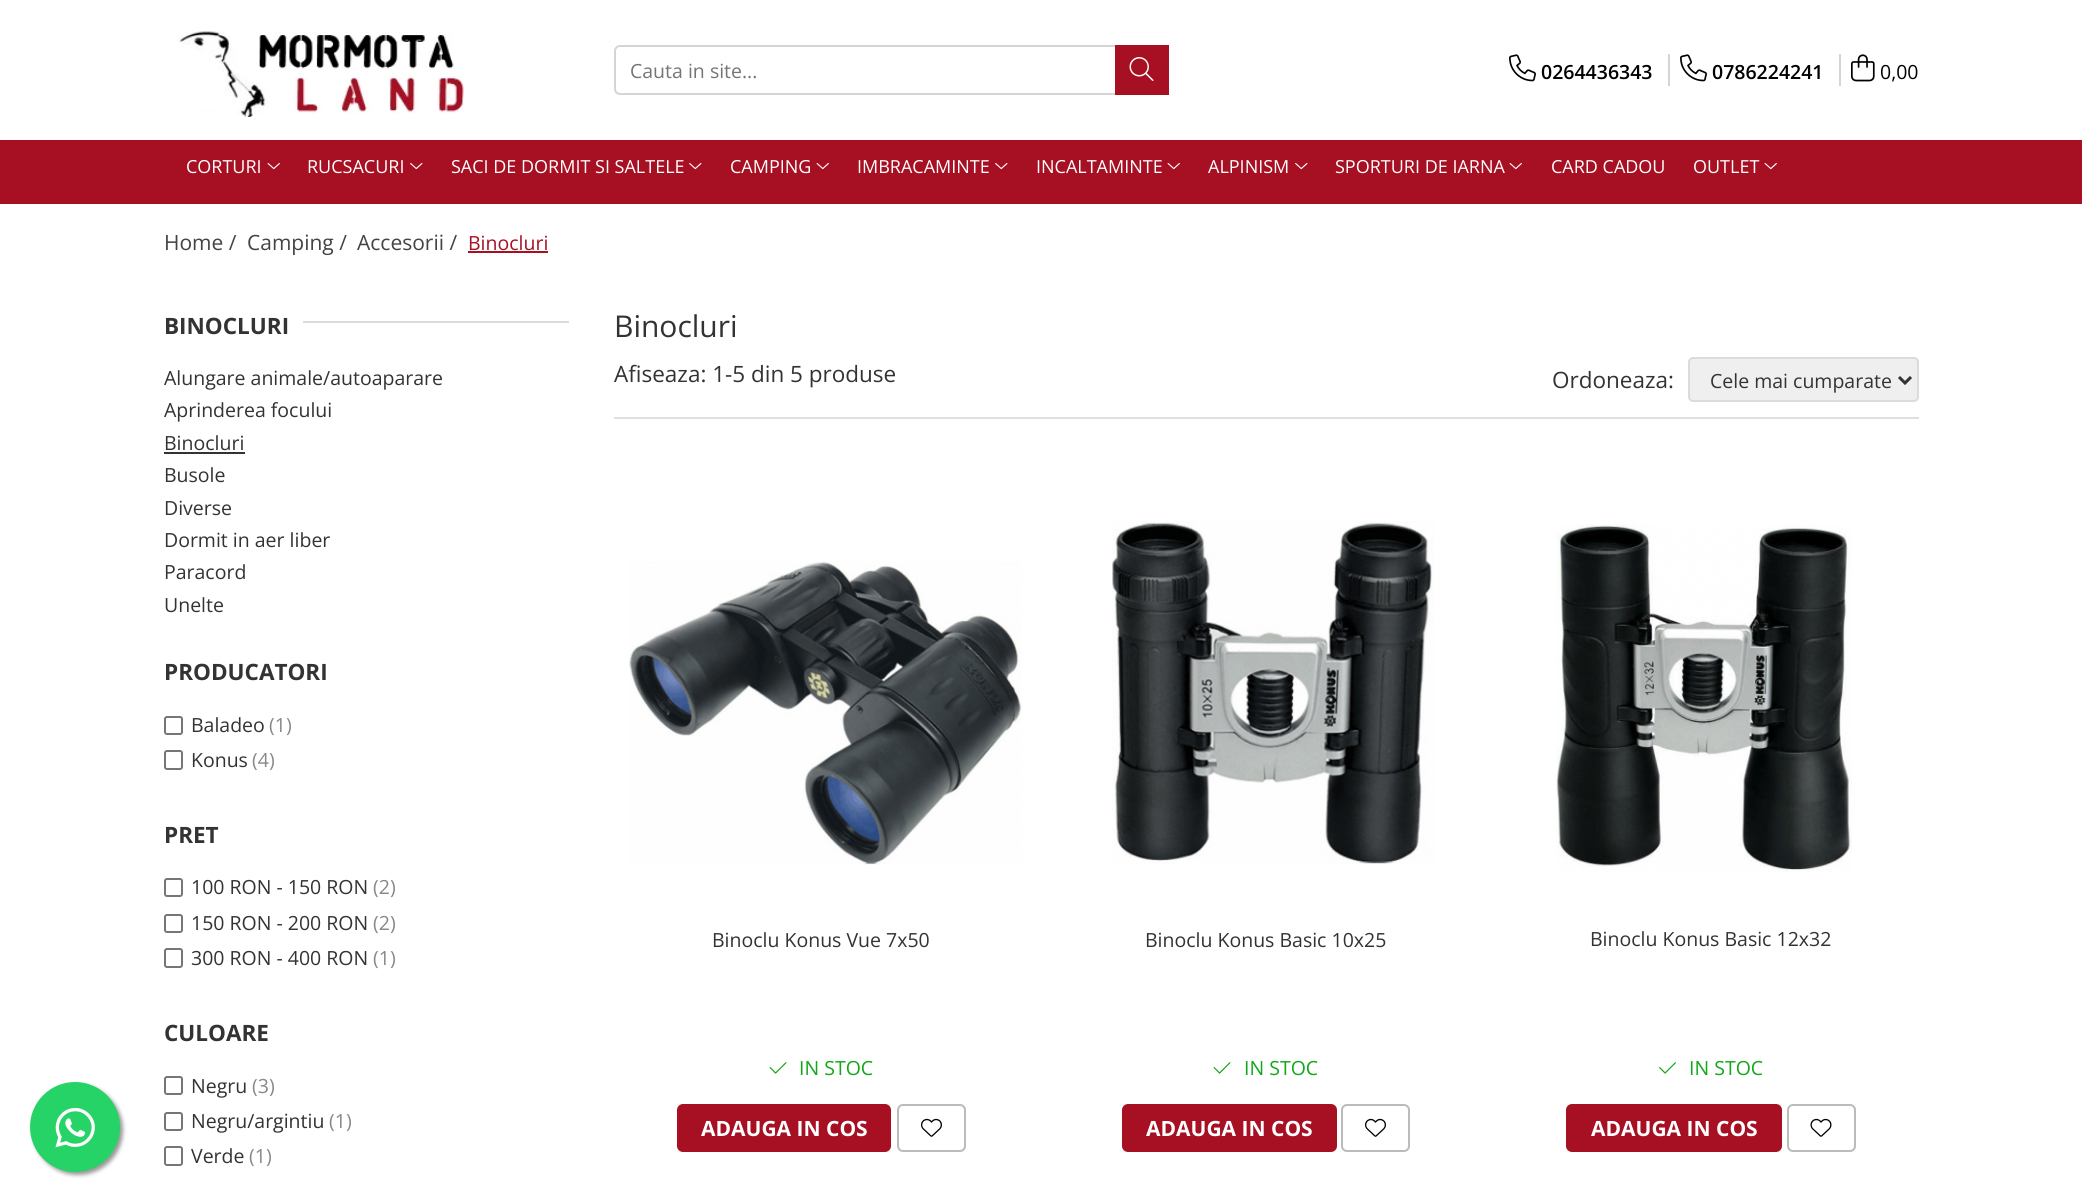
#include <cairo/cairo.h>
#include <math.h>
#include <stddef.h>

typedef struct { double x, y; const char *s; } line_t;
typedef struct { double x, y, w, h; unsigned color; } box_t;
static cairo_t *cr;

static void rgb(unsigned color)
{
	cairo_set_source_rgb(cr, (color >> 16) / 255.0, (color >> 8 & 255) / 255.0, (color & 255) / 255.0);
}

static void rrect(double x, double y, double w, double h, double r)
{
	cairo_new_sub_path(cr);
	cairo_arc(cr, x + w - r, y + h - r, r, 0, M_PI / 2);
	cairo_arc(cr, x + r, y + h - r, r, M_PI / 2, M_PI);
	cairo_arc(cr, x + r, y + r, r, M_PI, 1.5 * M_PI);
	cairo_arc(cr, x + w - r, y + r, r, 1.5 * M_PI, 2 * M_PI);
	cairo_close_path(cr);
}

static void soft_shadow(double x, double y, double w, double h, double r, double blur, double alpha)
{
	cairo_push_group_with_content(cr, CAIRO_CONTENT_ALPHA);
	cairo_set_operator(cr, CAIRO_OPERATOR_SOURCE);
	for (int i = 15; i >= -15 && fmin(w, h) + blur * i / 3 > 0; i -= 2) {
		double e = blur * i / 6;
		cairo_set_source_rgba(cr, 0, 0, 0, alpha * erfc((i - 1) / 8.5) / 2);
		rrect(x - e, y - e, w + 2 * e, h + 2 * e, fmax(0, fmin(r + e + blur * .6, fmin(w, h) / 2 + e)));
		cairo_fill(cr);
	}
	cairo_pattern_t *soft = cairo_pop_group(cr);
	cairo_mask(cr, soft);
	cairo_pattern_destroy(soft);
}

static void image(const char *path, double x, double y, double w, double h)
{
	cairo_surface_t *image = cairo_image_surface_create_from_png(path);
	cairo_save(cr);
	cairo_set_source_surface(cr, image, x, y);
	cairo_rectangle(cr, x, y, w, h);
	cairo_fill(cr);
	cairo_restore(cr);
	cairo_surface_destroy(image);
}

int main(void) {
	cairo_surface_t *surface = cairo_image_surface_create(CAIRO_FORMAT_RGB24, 2082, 1201);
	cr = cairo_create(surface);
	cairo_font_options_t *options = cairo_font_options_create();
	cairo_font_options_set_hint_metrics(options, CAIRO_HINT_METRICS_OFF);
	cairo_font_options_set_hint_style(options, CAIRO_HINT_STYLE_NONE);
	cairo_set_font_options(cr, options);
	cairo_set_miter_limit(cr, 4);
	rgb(0xffffff);
	cairo_paint(cr);
	rgb(0x999999);
	soft_shadow(33, 1085, 90, 90, 45, 2, 1);
	rgb(0x25d366);
	cairo_arc(cr, 75, 1127, 45, 0, 2 * M_PI);
	cairo_fill(cr);
	image("img/1.png", 55, 1107, 40, 41);
	image("img/2.png", 177, 31, 287, 86);
	rrect(615, 46, 553, 48, 5);
	rgb(0xd5d5d5);
	cairo_stroke(cr);
	rgb(0xa71023);
	cairo_rectangle(cr, 1115, 45, 54, 50);
	cairo_fill(cr);
	image("img/3.png", 1129, 57, 25, 24);
	image("img/4.png", 1509, 54, 27, 28);
	rgb(0xd5d5d5);
	cairo_rectangle(cr, 1668, 54, 2, 32);
	cairo_fill(cr);
	image("img/4.png", 1680, 54, 27, 28);
	cairo_rectangle(cr, 1839, 54, 2, 32);
	cairo_fill(cr);
	image("img/5.png", 1851, 54, 24, 28);
	rgb(0xa71023);
	cairo_rectangle(cr, 0, 140, 2082, 64);
	cairo_fill(cr);
	image("img/6.png", 267, 163, 13, 7);
	image("img/7.png", 410, 163, 13, 7);
	image("img/7.png", 689, 163, 13, 7);
	image("img/6.png", 816, 163, 13, 7);
	image("img/7.png", 995, 163, 13, 7);
	image("img/6.png", 1167, 163, 13, 7);
	image("img/7.png", 1295, 163, 13, 7);
	image("img/6.png", 1509, 163, 13, 7);
	image("img/6.png", 1764, 163, 13, 7);
	{
		static const box_t items[] = {
			{468, 251, 80, 2, 0xa71023},
			{303, 321, 266, 2, 0xdbdbdb},
			{164, 452, 81, 2, 0x333333},
		};
		for (size_t i = 0; i < sizeof items / sizeof *items; i++) {
			rgb(items[i].color);
			cairo_rectangle(cr, items[i].x, items[i].y, items[i].w, items[i].h);
			cairo_fill(cr);
		}
	}
	rrect(165, 717, 17, 17, 2);
	rgb(0x767676);
	cairo_stroke(cr);
	rrect(165, 751, 17, 18, 2);
	cairo_stroke(cr);
	rrect(165, 879, 17, 17, 2);
	cairo_stroke(cr);
	rrect(165, 915, 17, 17, 2);
	cairo_stroke(cr);
	rrect(165, 949, 17, 18, 2);
	cairo_stroke(cr);
	rrect(165, 1077, 17, 17, 2);
	cairo_stroke(cr);
	rrect(165, 1113, 17, 17, 2);
	cairo_stroke(cr);
	rrect(165, 1147, 17, 18, 2);
	cairo_stroke(cr);
	rgb(0xdfdfdf);
	cairo_rectangle(cr, 614, 417, 1305, 2);
	cairo_fill(cr);
	rgb(0xefefef);
	rrect(1689, 358, 229, 43, 4);
	cairo_fill_preserve(cr);
	rgb(0xdbdbdb);
	cairo_stroke(cr);
	cairo_new_path(cr);
	cairo_move_to(cr, 1899, 377);
	cairo_line_to(cr, 1905, 383);
	cairo_line_to(cr, 1911, 377);
	rgb(0x333333);
	cairo_set_line_width(cr, 3);
	cairo_stroke(cr);
	image("img/8.png", 629, 561, 393, 304);
	image("img/9.png", 769, 1062, 18, 12);
	rgb(0xa71023);
	rrect(678, 1105, 212, 46, 5);
	cairo_fill_preserve(cr);
	cairo_set_line_width(cr, 2);
	cairo_stroke(cr);
	rrect(898, 1105, 67, 46, 5);
	rgb(0xbbbbbb);
	cairo_stroke(cr);
	image("img/10.png", 921, 1118, 21, 19);
	image("img/11.png", 1112, 521, 323, 343);
	image("img/9.png", 1213, 1062, 18, 12);
	rgb(0xa71023);
	rrect(1123, 1105, 213, 46, 5);
	cairo_fill_preserve(cr);
	cairo_stroke(cr);
	rrect(1342, 1105, 67, 46, 5);
	rgb(0xbbbbbb);
	cairo_stroke(cr);
	image("img/10.png", 1365, 1118, 21, 19);
	image("img/12.png", 1556, 524, 296, 348);
	image("img/13.png", 1659, 1062, 17, 12);
	rgb(0xa71023);
	rrect(1567, 1105, 214, 46, 5);
	cairo_fill_preserve(cr);
	cairo_stroke(cr);
	rrect(1788, 1105, 67, 46, 5);
	rgb(0xbbbbbb);
	cairo_stroke(cr);
	image("img/14.png", 1810, 1118, 22, 19);
	cairo_select_font_face(cr, "Open Sans", CAIRO_FONT_SLANT_NORMAL, CAIRO_FONT_WEIGHT_NORMAL);
	cairo_set_font_size(cr, 19.5);
	rgb(0x757575);
	cairo_move_to(cr, 630, 78);
	cairo_show_text(cr, "Cauta in site...");
	cairo_select_font_face(cr, "Open Sans SemiBold", CAIRO_FONT_SLANT_NORMAL, CAIRO_FONT_WEIGHT_NORMAL);
	rgb(0x000000);
	cairo_move_to(cr, 1541, 79);
	cairo_show_text(cr, "0264436343");
	cairo_move_to(cr, 1712, 79);
	cairo_show_text(cr, "0786224241");
	cairo_select_font_face(cr, "Open Sans", CAIRO_FONT_SLANT_NORMAL, CAIRO_FONT_WEIGHT_NORMAL);
	cairo_move_to(cr, 1880, 79);
	cairo_show_text(cr, "0,00");
	cairo_set_font_size(cr, 18);
	rgb(0xffffff);
	{
		static const line_t items[] = {
			{186, 173, "CORTURI"},
			{307, 173, "RUCSACURI"},
			{451, 173, "SACI DE DORMIT SI SALTELE"},
			{730, 173, "CAMPING"},
			{857, 173, "IMBRACAMINTE"},
			{1036, 173, "INCALTAMINTE"},
			{1208, 173, "ALPINISM"},
			{1335, 173, "SPORTURI DE IARNA"},
			{1551, 173, "CARD CADOU"},
			{1693, 173, "OUTLET"},
		};
		for (size_t i = 0; i < sizeof items / sizeof *items; i++) {
			cairo_move_to(cr, items[i].x, items[i].y);
			cairo_show_text(cr, items[i].s);
		}
	}
	cairo_set_font_size(cr, 21);
	rgb(0x444444);
	{
		static const line_t items[] = {
			{164, 250, "Home /"},
			{247, 250, "Camping /"},
			{357, 250, "Accesorii /"},
		};
		for (size_t i = 0; i < sizeof items / sizeof *items; i++) {
			cairo_move_to(cr, items[i].x, items[i].y);
			cairo_show_text(cr, items[i].s);
		}
	}
	cairo_set_font_size(cr, 19.5);
	rgb(0xa71023);
	cairo_move_to(cr, 468, 250);
	cairo_show_text(cr, "Binocluri");
	cairo_select_font_face(cr, "Open Sans", CAIRO_FONT_SLANT_NORMAL, CAIRO_FONT_WEIGHT_BOLD);
	cairo_set_font_size(cr, 22.5);
	rgb(0x333333);
	cairo_move_to(cr, 164, 334);
	cairo_show_text(cr, "BINOCLURI");
	cairo_select_font_face(cr, "Open Sans", CAIRO_FONT_SLANT_NORMAL, CAIRO_FONT_WEIGHT_NORMAL);
	cairo_set_font_size(cr, 19.5);
	{
		static const line_t items[] = {
			{164, 385, "Alungare animale/autoaparare"},
			{164, 417, "Aprinderea focului"},
			{164, 450, "Binocluri"},
			{164, 482, "Busole"},
			{164, 515, "Diverse"},
			{164, 547, "Dormit in aer liber"},
			{164, 579, "Paracord"},
			{164, 612, "Unelte"},
		};
		for (size_t i = 0; i < sizeof items / sizeof *items; i++) {
			cairo_move_to(cr, items[i].x, items[i].y);
			cairo_show_text(cr, items[i].s);
		}
	}
	cairo_select_font_face(cr, "Open Sans", CAIRO_FONT_SLANT_NORMAL, CAIRO_FONT_WEIGHT_BOLD);
	cairo_set_font_size(cr, 22.5);
	cairo_move_to(cr, 164, 680);
	cairo_show_text(cr, "PRODUCATORI");
	cairo_select_font_face(cr, "Open Sans", CAIRO_FONT_SLANT_NORMAL, CAIRO_FONT_WEIGHT_NORMAL);
	cairo_set_font_size(cr, 19.5);
	cairo_move_to(cr, 191, 732);
	cairo_show_text(cr, "Baladeo");
	rgb(0x888888);
	cairo_move_to(cr, 269, 732);
	cairo_show_text(cr, "(1)");
	rgb(0x333333);
	cairo_move_to(cr, 191, 767);
	cairo_show_text(cr, "Konus");
	rgb(0x888888);
	cairo_move_to(cr, 252, 767);
	cairo_show_text(cr, "(4)");
	cairo_select_font_face(cr, "Open Sans", CAIRO_FONT_SLANT_NORMAL, CAIRO_FONT_WEIGHT_BOLD);
	cairo_set_font_size(cr, 22.5);
	rgb(0x333333);
	cairo_move_to(cr, 164, 843);
	cairo_show_text(cr, "PRET");
	cairo_select_font_face(cr, "Open Sans", CAIRO_FONT_SLANT_NORMAL, CAIRO_FONT_WEIGHT_NORMAL);
	cairo_set_font_size(cr, 19.5);
	cairo_move_to(cr, 191, 894);
	cairo_show_text(cr, "100 RON - 150 RON");
	rgb(0x888888);
	cairo_move_to(cr, 373, 894);
	cairo_show_text(cr, "(2)");
	rgb(0x333333);
	cairo_move_to(cr, 191, 930);
	cairo_show_text(cr, "150 RON - 200 RON");
	rgb(0x888888);
	cairo_move_to(cr, 373, 930);
	cairo_show_text(cr, "(2)");
	rgb(0x333333);
	cairo_move_to(cr, 191, 965);
	cairo_show_text(cr, "300 RON - 400 RON");
	rgb(0x888888);
	cairo_move_to(cr, 373, 965);
	cairo_show_text(cr, "(1)");
	cairo_select_font_face(cr, "Open Sans", CAIRO_FONT_SLANT_NORMAL, CAIRO_FONT_WEIGHT_BOLD);
	cairo_set_font_size(cr, 22.5);
	rgb(0x333333);
	cairo_move_to(cr, 164, 1041);
	cairo_show_text(cr, "CULOARE");
	cairo_select_font_face(cr, "Open Sans", CAIRO_FONT_SLANT_NORMAL, CAIRO_FONT_WEIGHT_NORMAL);
	cairo_set_font_size(cr, 19.5);
	cairo_move_to(cr, 191, 1093);
	cairo_show_text(cr, "Negru");
	rgb(0x888888);
	cairo_move_to(cr, 252, 1093);
	cairo_show_text(cr, "(3)");
	rgb(0x333333);
	cairo_move_to(cr, 191, 1128);
	cairo_show_text(cr, "Negru/argintiu");
	rgb(0x888888);
	cairo_move_to(cr, 329, 1128);
	cairo_show_text(cr, "(1)");
	rgb(0x333333);
	cairo_move_to(cr, 191, 1163);
	cairo_show_text(cr, "Verde");
	rgb(0x888888);
	cairo_move_to(cr, 249, 1163);
	cairo_show_text(cr, "(1)");
	cairo_set_font_size(cr, 30);
	rgb(0x333333);
	cairo_move_to(cr, 614, 337);
	cairo_show_text(cr, "Binocluri");
	cairo_set_font_size(cr, 22.5);
	cairo_move_to(cr, 614, 382);
	cairo_show_text(cr, "Afiseaza: 1-5 din 5 produse");
	cairo_move_to(cr, 1552, 388);
	cairo_show_text(cr, "Ordoneaza:");
	cairo_set_font_size(cr, 19.5);
	cairo_move_to(cr, 1710, 388);
	cairo_show_text(cr, "Cele mai cumparate");
	cairo_move_to(cr, 712, 947);
	cairo_show_text(cr, "Binoclu Konus Vue 7x50");
	rgb(0x11a717);
	cairo_move_to(cr, 799, 1075);
	cairo_show_text(cr, "IN STOC");
	cairo_select_font_face(cr, "Open Sans", CAIRO_FONT_SLANT_NORMAL, CAIRO_FONT_WEIGHT_BOLD);
	cairo_set_font_size(cr, 21);
	rgb(0xffffff);
	cairo_move_to(cr, 701, 1136);
	cairo_show_text(cr, "ADAUGA IN COS");
	cairo_select_font_face(cr, "Open Sans", CAIRO_FONT_SLANT_NORMAL, CAIRO_FONT_WEIGHT_NORMAL);
	cairo_set_font_size(cr, 19.5);
	rgb(0x333333);
	cairo_move_to(cr, 1145, 947);
	cairo_show_text(cr, "Binoclu Konus Basic 10x25");
	rgb(0x11a717);
	cairo_move_to(cr, 1244, 1075);
	cairo_show_text(cr, "IN STOC");
	cairo_select_font_face(cr, "Open Sans", CAIRO_FONT_SLANT_NORMAL, CAIRO_FONT_WEIGHT_BOLD);
	cairo_set_font_size(cr, 21);
	rgb(0xffffff);
	cairo_move_to(cr, 1146, 1136);
	cairo_show_text(cr, "ADAUGA IN COS");
	cairo_select_font_face(cr, "Open Sans", CAIRO_FONT_SLANT_NORMAL, CAIRO_FONT_WEIGHT_NORMAL);
	cairo_set_font_size(cr, 19.5);
	rgb(0x333333);
	cairo_move_to(cr, 1590, 946);
	cairo_show_text(cr, "Binoclu Konus Basic 12x32");
	rgb(0x11a717);
	cairo_move_to(cr, 1689, 1075);
	cairo_show_text(cr, "IN STOC");
	cairo_select_font_face(cr, "Open Sans", CAIRO_FONT_SLANT_NORMAL, CAIRO_FONT_WEIGHT_BOLD);
	cairo_set_font_size(cr, 21);
	rgb(0xffffff);
	cairo_move_to(cr, 1591, 1136);
	cairo_show_text(cr, "ADAUGA IN COS");
	cairo_surface_write_to_png(surface, "page.png");
	cairo_font_options_destroy(options);
	cairo_destroy(cr);
	cairo_surface_destroy(surface);
	return 0;
}
